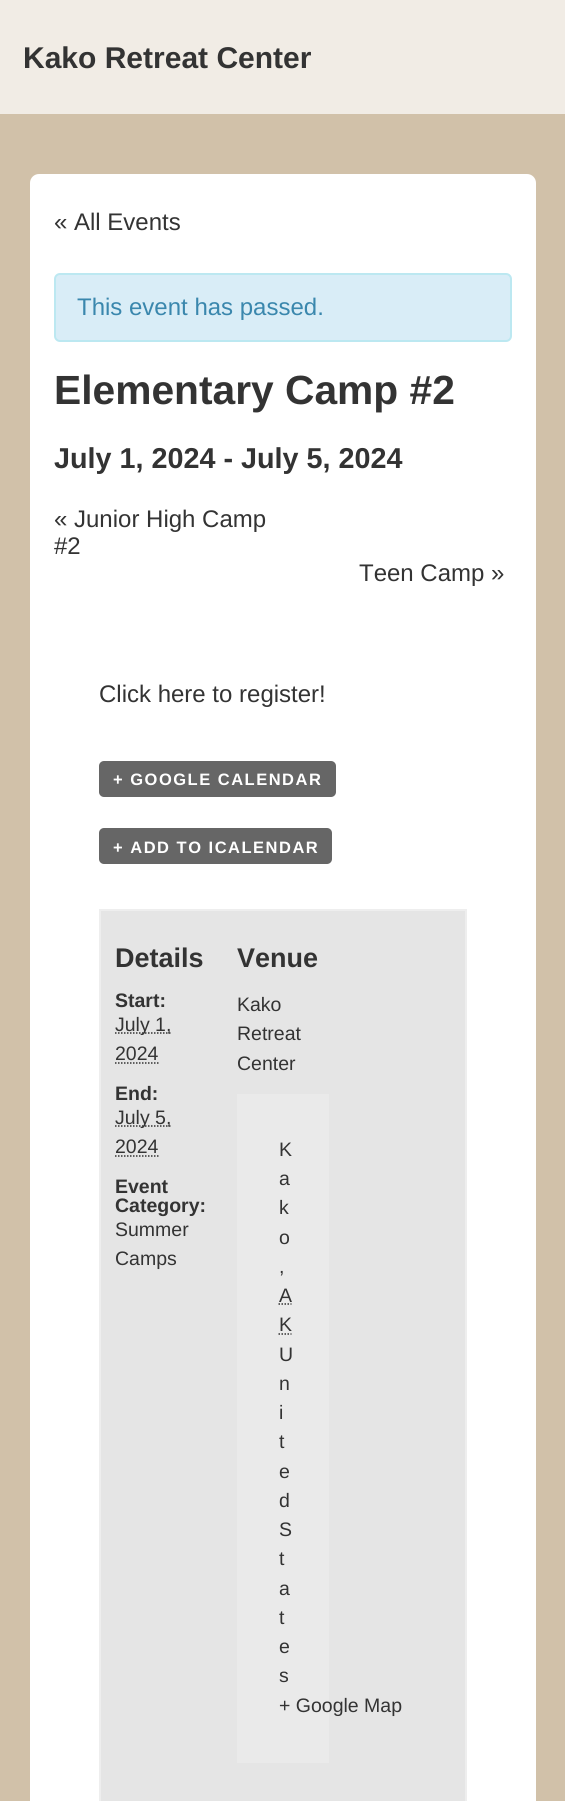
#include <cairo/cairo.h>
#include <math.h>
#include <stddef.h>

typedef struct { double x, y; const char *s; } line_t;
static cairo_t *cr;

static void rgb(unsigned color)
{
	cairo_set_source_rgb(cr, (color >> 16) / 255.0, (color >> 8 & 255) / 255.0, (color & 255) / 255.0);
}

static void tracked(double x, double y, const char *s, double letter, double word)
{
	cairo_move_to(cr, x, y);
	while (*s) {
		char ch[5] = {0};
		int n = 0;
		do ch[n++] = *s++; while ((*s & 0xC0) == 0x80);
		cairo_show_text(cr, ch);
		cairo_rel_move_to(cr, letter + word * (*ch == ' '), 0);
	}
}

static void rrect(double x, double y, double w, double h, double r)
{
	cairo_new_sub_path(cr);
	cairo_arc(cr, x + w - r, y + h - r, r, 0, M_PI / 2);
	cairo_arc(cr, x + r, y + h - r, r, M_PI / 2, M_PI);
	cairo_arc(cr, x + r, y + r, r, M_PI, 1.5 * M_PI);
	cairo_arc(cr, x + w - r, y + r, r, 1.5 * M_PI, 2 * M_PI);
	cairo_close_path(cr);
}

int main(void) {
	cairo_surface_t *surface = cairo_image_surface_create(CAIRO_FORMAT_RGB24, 565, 1801);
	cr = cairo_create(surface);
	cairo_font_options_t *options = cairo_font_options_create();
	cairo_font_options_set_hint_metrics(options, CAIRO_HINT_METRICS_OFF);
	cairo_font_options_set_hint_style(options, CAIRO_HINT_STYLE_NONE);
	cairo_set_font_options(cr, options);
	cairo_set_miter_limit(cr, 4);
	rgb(0xd1c1a9);
	cairo_paint(cr);
	rgb(0xf1ece5);
	cairo_rectangle(cr, 0, 0, 565, 114);
	cairo_fill(cr);
	rgb(0xffffff);
	rrect(30, 174, 506, 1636, 9);
	cairo_fill(cr);
	rgb(0xd9edf7);
	rrect(55, 274, 456, 67, 5);
	cairo_fill_preserve(cr);
	rgb(0xbce8f1);
	cairo_stroke(cr);
	rgb(0x666666);
	rrect(99, 761, 237, 36, 5);
	cairo_fill(cr);
	rrect(99, 828, 233, 36, 5);
	cairo_fill(cr);
	rgb(0xe5e5e5);
	cairo_rectangle(cr, 100, 910, 366, 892);
	cairo_fill_preserve(cr);
	rgb(0xeeeeee);
	cairo_stroke(cr);
	cairo_new_path(cr);
	cairo_move_to(cr, 115, 1033);
	cairo_line_to(cr, 171.5, 1033);
	rgb(0x333333);
	cairo_set_line_width(cr, 1.5);
	cairo_set_dash(cr, (double[]){1.5, 1.5}, 2, 0);
	cairo_stroke(cr);
	cairo_new_path(cr);
	cairo_move_to(cr, 115, 1063);
	cairo_line_to(cr, 158.5, 1063);
	cairo_stroke(cr);
	cairo_new_path(cr);
	cairo_move_to(cr, 115, 1126);
	cairo_line_to(cr, 171.5, 1126);
	cairo_stroke(cr);
	cairo_new_path(cr);
	cairo_move_to(cr, 115, 1156);
	cairo_line_to(cr, 158.5, 1156);
	cairo_stroke(cr);
	rgb(0xeaeaea);
	cairo_rectangle(cr, 237, 1094, 92, 669);
	cairo_fill(cr);
	cairo_new_path(cr);
	cairo_move_to(cr, 278.5, 1304);
	cairo_line_to(cr, 291.5, 1304);
	rgb(0x333333);
	cairo_stroke(cr);
	cairo_new_path(cr);
	cairo_move_to(cr, 278.5, 1334);
	cairo_line_to(cr, 291.5, 1334);
	cairo_stroke(cr);
	cairo_select_font_face(cr, "Liberation Sans", CAIRO_FONT_SLANT_NORMAL, CAIRO_FONT_WEIGHT_BOLD);
	cairo_set_font_size(cr, 30);
	cairo_move_to(cr, 23, 68);
	cairo_show_text(cr, "Kako Retreat Center");
	cairo_select_font_face(cr, "Liberation Sans", CAIRO_FONT_SLANT_NORMAL, CAIRO_FONT_WEIGHT_NORMAL);
	cairo_set_font_size(cr, 24);
	cairo_move_to(cr, 54, 230);
	cairo_show_text(cr, "« All Events");
	rgb(0x3a87ad);
	cairo_move_to(cr, 77, 315);
	cairo_show_text(cr, "This event has passed.");
	cairo_select_font_face(cr, "Liberation Sans", CAIRO_FONT_SLANT_NORMAL, CAIRO_FONT_WEIGHT_BOLD);
	cairo_set_font_size(cr, 40.75);
	rgb(0x333333);
	cairo_move_to(cr, 54, 404);
	cairo_show_text(cr, "Elementary Camp #2");
	cairo_set_font_size(cr, 28.75);
	cairo_move_to(cr, 54, 468);
	cairo_show_text(cr, "July 1, 2024 - July 5, 2024");
	cairo_select_font_face(cr, "Liberation Sans", CAIRO_FONT_SLANT_NORMAL, CAIRO_FONT_WEIGHT_NORMAL);
	cairo_set_font_size(cr, 24);
	{
		static const line_t items[] = {
			{54, 527, "« Junior High Camp"},
			{54, 554, "#2"},
			{359, 581, "Teen Camp »"},
			{99, 702, "Click here to register!"},
		};
		for (size_t i = 0; i < sizeof items / sizeof *items; i++) {
			cairo_move_to(cr, items[i].x, items[i].y);
			cairo_show_text(cr, items[i].s);
		}
	}
	cairo_select_font_face(cr, "Liberation Sans", CAIRO_FONT_SLANT_NORMAL, CAIRO_FONT_WEIGHT_BOLD);
	cairo_set_font_size(cr, 16.5);
	rgb(0xffffff);
	tracked(113, 785, "+ GOOGLE CALENDAR", 1.5, 0);
	tracked(113, 853, "+ ADD TO ICALENDAR", 1.5, 0);
	cairo_set_font_size(cr, 27);
	rgb(0x333333);
	cairo_move_to(cr, 115, 967);
	cairo_show_text(cr, "Details");
	cairo_set_font_size(cr, 19.5);
	cairo_move_to(cr, 115, 1007);
	cairo_show_text(cr, "Start:");
	cairo_select_font_face(cr, "Liberation Sans", CAIRO_FONT_SLANT_NORMAL, CAIRO_FONT_WEIGHT_NORMAL);
	cairo_move_to(cr, 115, 1031);
	cairo_show_text(cr, "July 1,");
	cairo_move_to(cr, 115, 1060);
	cairo_show_text(cr, "2024");
	cairo_select_font_face(cr, "Liberation Sans", CAIRO_FONT_SLANT_NORMAL, CAIRO_FONT_WEIGHT_BOLD);
	cairo_move_to(cr, 115, 1100);
	cairo_show_text(cr, "End:");
	cairo_select_font_face(cr, "Liberation Sans", CAIRO_FONT_SLANT_NORMAL, CAIRO_FONT_WEIGHT_NORMAL);
	cairo_move_to(cr, 115, 1124);
	cairo_show_text(cr, "July 5,");
	cairo_move_to(cr, 115, 1153);
	cairo_show_text(cr, "2024");
	cairo_select_font_face(cr, "Liberation Sans", CAIRO_FONT_SLANT_NORMAL, CAIRO_FONT_WEIGHT_BOLD);
	cairo_move_to(cr, 115, 1193);
	cairo_show_text(cr, "Event");
	cairo_move_to(cr, 115, 1212);
	cairo_show_text(cr, "Category:");
	cairo_select_font_face(cr, "Liberation Sans", CAIRO_FONT_SLANT_NORMAL, CAIRO_FONT_WEIGHT_NORMAL);
	cairo_move_to(cr, 115, 1236);
	cairo_show_text(cr, "Summer");
	cairo_move_to(cr, 115, 1265);
	cairo_show_text(cr, "Camps");
	cairo_select_font_face(cr, "Liberation Sans", CAIRO_FONT_SLANT_NORMAL, CAIRO_FONT_WEIGHT_BOLD);
	cairo_set_font_size(cr, 27);
	cairo_move_to(cr, 237, 967);
	cairo_show_text(cr, "Venue");
	cairo_select_font_face(cr, "Liberation Sans", CAIRO_FONT_SLANT_NORMAL, CAIRO_FONT_WEIGHT_NORMAL);
	cairo_set_font_size(cr, 19.5);
	{
		static const line_t items[] = {
			{237, 1011, "Kako"},
			{237, 1040, "Retreat"},
			{237, 1070, "Center"},
			{279, 1156, "K"},
			{279, 1185, "a"},
			{279, 1214, "k"},
			{279, 1244, "o"},
			{279, 1273, ","},
			{279, 1302, "A"},
			{279, 1331, "K"},
			{279, 1361, "U"},
			{279, 1390, "n"},
			{279, 1419, "i"},
			{279, 1448, "t"},
			{279, 1478, "e"},
			{279, 1507, "d"},
			{279, 1536, "S"},
			{279, 1565, "t"},
			{279, 1595, "a"},
			{279, 1624, "t"},
			{279, 1653, "e"},
			{279, 1682, "s"},
			{279, 1712, "+ Google Map"},
		};
		for (size_t i = 0; i < sizeof items / sizeof *items; i++) {
			cairo_move_to(cr, items[i].x, items[i].y);
			cairo_show_text(cr, items[i].s);
		}
	}
	cairo_surface_write_to_png(surface, "page.png");
	cairo_font_options_destroy(options);
	cairo_destroy(cr);
	cairo_surface_destroy(surface);
	return 0;
}
